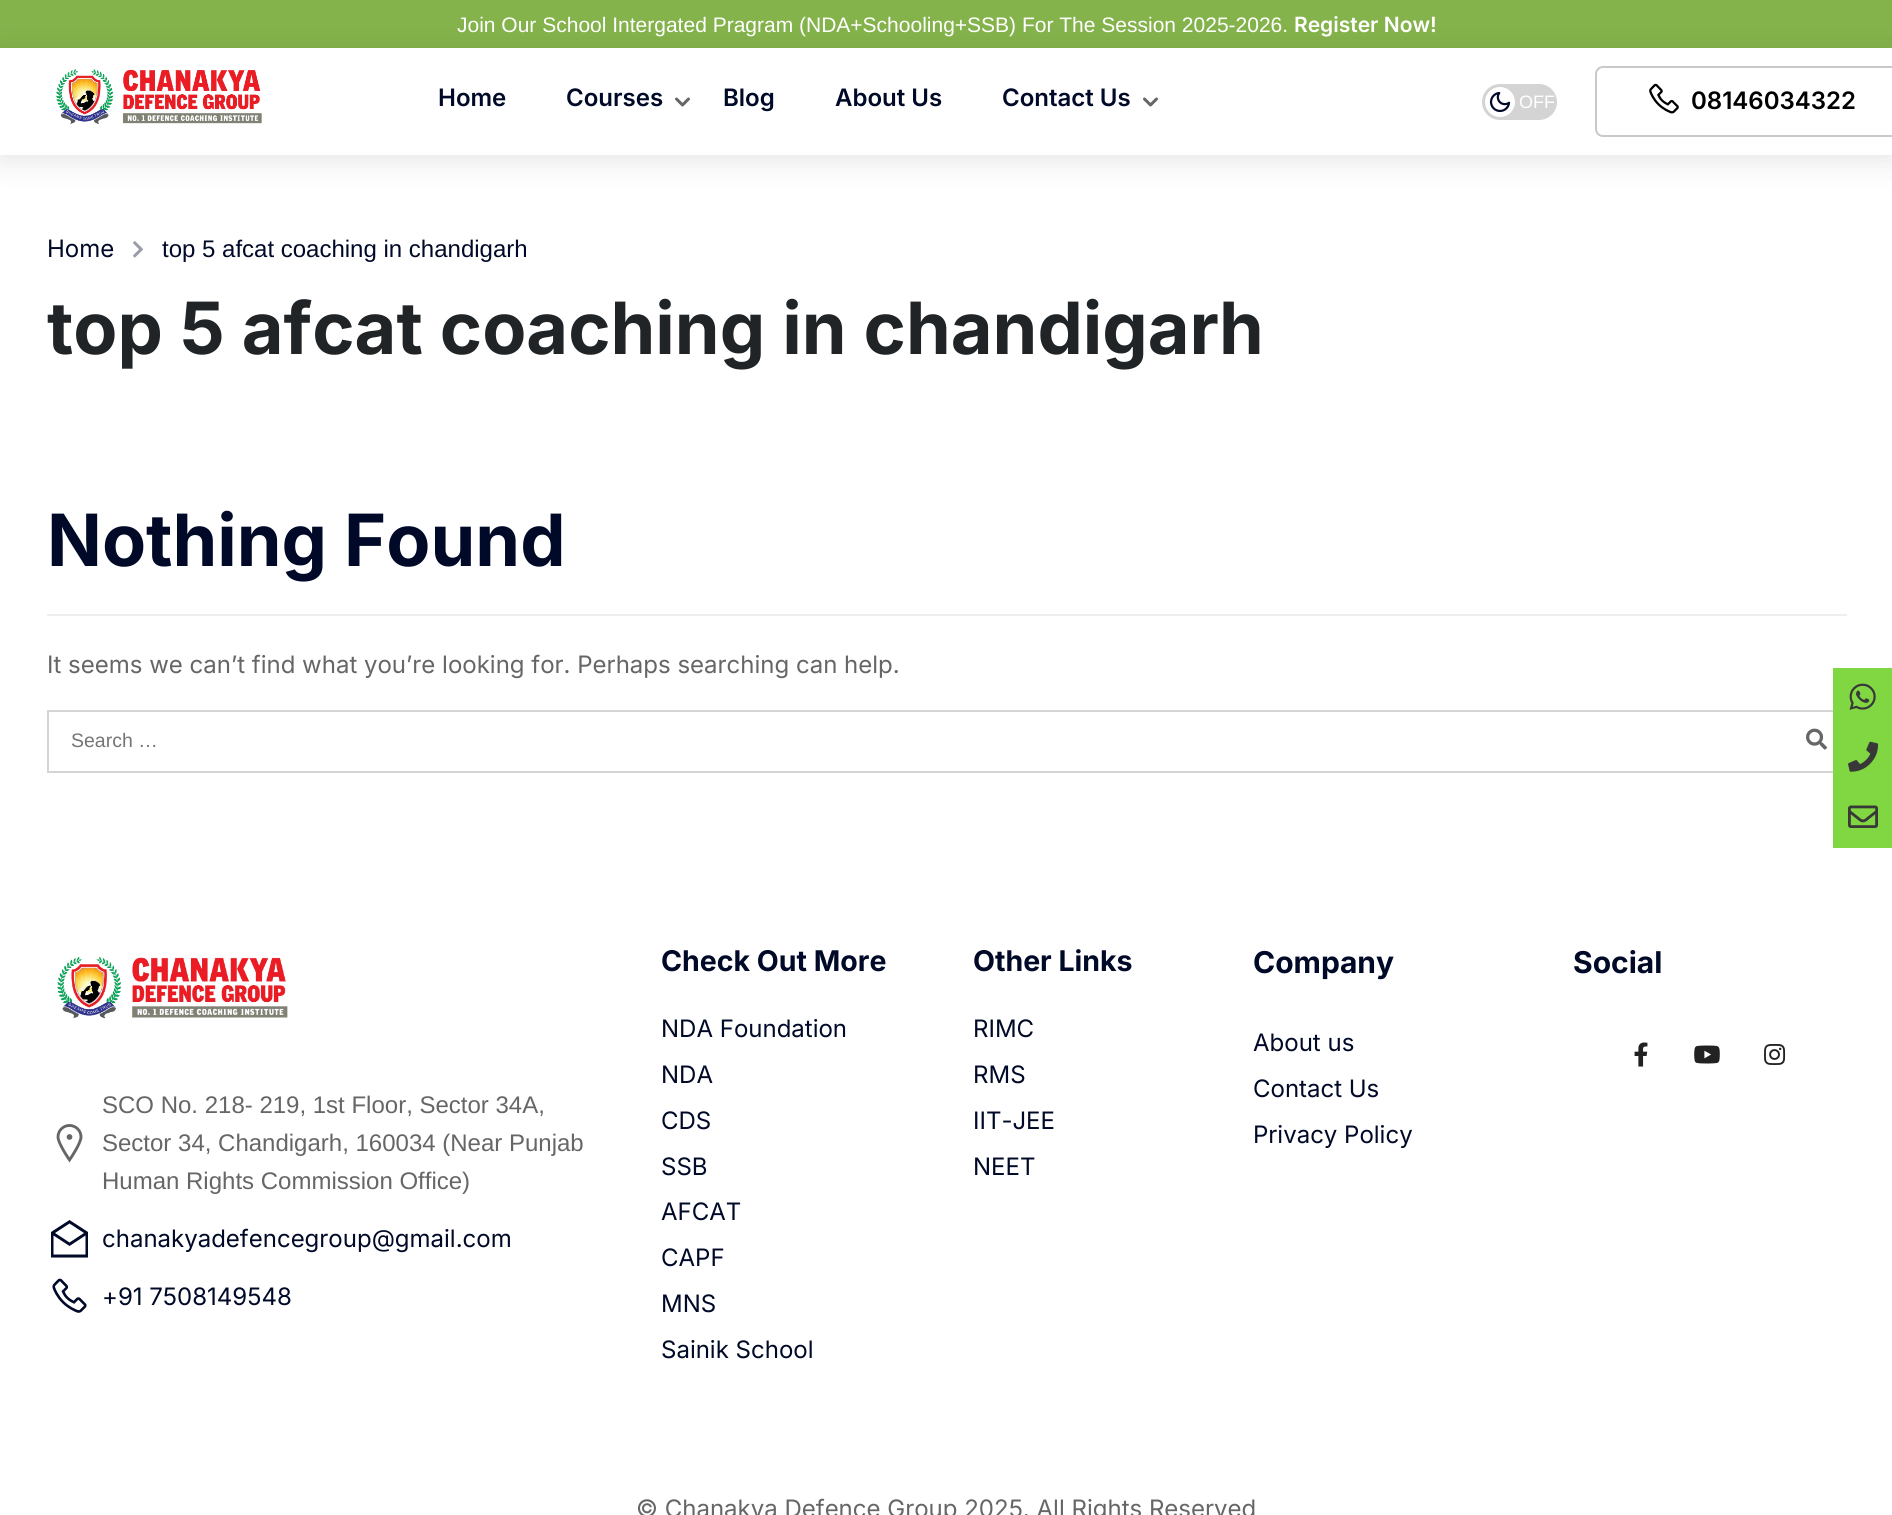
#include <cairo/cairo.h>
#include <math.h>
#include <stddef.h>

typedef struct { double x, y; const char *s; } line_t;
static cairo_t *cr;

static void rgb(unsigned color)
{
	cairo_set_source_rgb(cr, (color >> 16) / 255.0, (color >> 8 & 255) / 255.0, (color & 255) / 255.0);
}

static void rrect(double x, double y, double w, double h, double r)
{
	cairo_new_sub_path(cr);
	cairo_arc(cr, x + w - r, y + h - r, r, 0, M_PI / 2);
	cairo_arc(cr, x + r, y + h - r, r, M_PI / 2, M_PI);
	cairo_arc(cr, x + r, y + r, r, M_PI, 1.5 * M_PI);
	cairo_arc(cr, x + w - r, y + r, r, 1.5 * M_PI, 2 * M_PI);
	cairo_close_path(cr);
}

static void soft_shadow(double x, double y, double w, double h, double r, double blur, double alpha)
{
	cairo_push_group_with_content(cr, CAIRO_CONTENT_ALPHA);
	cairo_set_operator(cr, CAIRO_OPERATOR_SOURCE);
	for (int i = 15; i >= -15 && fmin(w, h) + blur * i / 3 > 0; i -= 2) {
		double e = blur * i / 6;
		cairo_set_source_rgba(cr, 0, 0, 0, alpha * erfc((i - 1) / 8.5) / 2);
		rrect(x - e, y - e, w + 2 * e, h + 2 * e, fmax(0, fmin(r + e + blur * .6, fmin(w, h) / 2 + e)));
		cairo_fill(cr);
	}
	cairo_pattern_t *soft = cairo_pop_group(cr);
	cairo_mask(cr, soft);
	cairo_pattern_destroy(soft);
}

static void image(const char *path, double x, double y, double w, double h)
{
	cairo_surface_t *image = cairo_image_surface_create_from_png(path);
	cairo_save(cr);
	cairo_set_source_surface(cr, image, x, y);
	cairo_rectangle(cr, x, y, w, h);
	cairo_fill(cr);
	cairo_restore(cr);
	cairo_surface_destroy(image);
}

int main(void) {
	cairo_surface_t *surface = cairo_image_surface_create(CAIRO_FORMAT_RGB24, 1892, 1515);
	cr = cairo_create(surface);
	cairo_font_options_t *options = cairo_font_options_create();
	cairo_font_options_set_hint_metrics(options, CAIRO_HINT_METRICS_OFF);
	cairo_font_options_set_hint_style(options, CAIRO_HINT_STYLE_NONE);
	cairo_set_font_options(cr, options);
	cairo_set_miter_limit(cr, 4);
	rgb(0xffffff);
	cairo_paint(cr);
	rgb(0x84b24b);
	cairo_rectangle(cr, 0, 0, 1892, 48);
	cairo_fill(cr);
	rgb(0x000000);
	soft_shadow(0, 54, 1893, 107, 0, 15, 0.1);
	rgb(0xffffff);
	cairo_rectangle(cr, 0, 48, 1892, 107);
	cairo_fill(cr);
	image("img/1.png", 56, 69, 206, 55);
	image("img/2.png", 675, 97, 15, 10);
	image("img/2.png", 1143, 97, 15, 10);
	rgb(0xd4d4d4);
	rrect(1482, 84, 75, 36, 18);
	cairo_fill(cr);
	rgb(0xffffff);
	cairo_arc(cr, 1500, 102, 15, 0, 2 * M_PI);
	cairo_fill(cr);
	image("img/3.png", 1489, 91, 22, 22);
	rrect(1596, 67, 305, 69, 7);
	rgb(0xc9c9c9);
	cairo_stroke(cr);
	image("img/4.png", 1649, 83, 30, 31);
	image("img/5.png", 133, 241, 10, 17);
	rgb(0xeeeeee);
	cairo_rectangle(cr, 47, 614, 1800, 2);
	cairo_fill(cr);
	cairo_rectangle(cr, 48, 711, 1798, 61);
	rgb(0xd4d4d4);
	cairo_stroke(cr);
	image("img/6.png", 1806, 728, 21, 22);
	image("img/7.png", 1634, 1042, 14, 25);
	image("img/8.png", 1694, 1045, 26, 19);
	image("img/9.png", 1764, 1044, 22, 21);
	image("img/10.png", 57, 956, 231, 63);
	image("img/11.png", 56, 1124, 27, 39);
	rgb(0x000927);
	cairo_new_path(cr);
	cairo_move_to(cr, 69.5, 1220);
	cairo_line_to(cr, 51, 1232);
	cairo_line_to(cr, 51, 1257.5);
	cairo_line_to(cr, 88, 1257.5);
	cairo_line_to(cr, 88, 1232);
	cairo_close_path(cr);
	cairo_move_to(cr, 69.5, 1223.5);
	cairo_line_to(cr, 84, 1233);
	cairo_line_to(cr, 69.5, 1242.5);
	cairo_line_to(cr, 55, 1233);
	cairo_close_path(cr);
	cairo_move_to(cr, 53.5, 1235.5);
	cairo_line_to(cr, 69.5, 1246);
	cairo_line_to(cr, 85.5, 1235.5);
	cairo_line_to(cr, 85.5, 1254.5);
	cairo_line_to(cr, 53.5, 1254.5);
	cairo_close_path(cr);
	cairo_fill(cr);
	image("img/12.png", 52, 1278, 35, 35);
	rgb(0x81d742);
	cairo_rectangle(cr, 1833, 668, 59, 180);
	cairo_fill(cr);
	image("img/13.png", 1849, 683, 27, 27);
	image("img/14.png", 1848, 741, 31, 31);
	image("img/15.png", 1848, 805, 30, 23);
	cairo_select_font_face(cr, "Liberation Sans", CAIRO_FONT_SLANT_NORMAL, CAIRO_FONT_WEIGHT_NORMAL);
	cairo_set_font_size(cr, 21);
	rgb(0xffffff);
	cairo_move_to(cr, 457, 32);
	cairo_show_text(cr, "Join Our School Intergated Pragram (NDA+Schooling+SSB) For The Session 2025-2026.");
	cairo_select_font_face(cr, "Inter SemiBold", CAIRO_FONT_SLANT_NORMAL, CAIRO_FONT_WEIGHT_NORMAL);
	cairo_move_to(cr, 1294, 32);
	cairo_show_text(cr, "Register Now!");
	cairo_set_font_size(cr, 24);
	rgb(0x000927);
	{
		static const line_t items[] = {
			{438, 106, "Home"},
			{566, 106, "Courses"},
			{723, 106, "Blog"},
			{835, 106, "About Us"},
			{1002, 106, "Contact Us"},
		};
		for (size_t i = 0; i < sizeof items / sizeof *items; i++) {
			cairo_move_to(cr, items[i].x, items[i].y);
			cairo_show_text(cr, items[i].s);
		}
	}
	cairo_select_font_face(cr, "Liberation Sans", CAIRO_FONT_SLANT_NORMAL, CAIRO_FONT_WEIGHT_NORMAL);
	cairo_set_font_size(cr, 18);
	rgb(0xffffff);
	cairo_move_to(cr, 1519, 108);
	cairo_show_text(cr, "OFF");
	cairo_select_font_face(cr, "Inter SemiBold", CAIRO_FONT_SLANT_NORMAL, CAIRO_FONT_WEIGHT_NORMAL);
	cairo_set_font_size(cr, 24);
	rgb(0x000000);
	cairo_move_to(cr, 1691, 109);
	cairo_show_text(cr, "08146034322");
	cairo_select_font_face(cr, "Inter", CAIRO_FONT_SLANT_NORMAL, CAIRO_FONT_WEIGHT_NORMAL);
	rgb(0x000927);
	cairo_move_to(cr, 47, 257);
	cairo_show_text(cr, "Home");
	cairo_select_font_face(cr, "Liberation Sans", CAIRO_FONT_SLANT_NORMAL, CAIRO_FONT_WEIGHT_NORMAL);
	cairo_move_to(cr, 162, 257);
	cairo_show_text(cr, "top 5 afcat coaching in chandigarh");
	cairo_select_font_face(cr, "Inter", CAIRO_FONT_SLANT_NORMAL, CAIRO_FONT_WEIGHT_BOLD);
	cairo_set_font_size(cr, 72);
	rgb(0x212427);
	cairo_move_to(cr, 47, 354);
	cairo_show_text(cr, "top 5 afcat coaching in chandigarh");
	rgb(0x000927);
	cairo_move_to(cr, 47, 566);
	cairo_show_text(cr, "Nothing Found");
	cairo_select_font_face(cr, "Inter", CAIRO_FONT_SLANT_NORMAL, CAIRO_FONT_WEIGHT_NORMAL);
	cairo_set_font_size(cr, 24);
	rgb(0x666666);
	cairo_move_to(cr, 47, 673);
	cairo_show_text(cr, "It seems we can’t find what you’re looking for. Perhaps searching can help.");
	cairo_select_font_face(cr, "Liberation Sans", CAIRO_FONT_SLANT_NORMAL, CAIRO_FONT_WEIGHT_NORMAL);
	cairo_set_font_size(cr, 19.5);
	rgb(0x757575);
	cairo_move_to(cr, 71, 747);
	cairo_show_text(cr, "Search …");
	cairo_select_font_face(cr, "Inter", CAIRO_FONT_SLANT_NORMAL, CAIRO_FONT_WEIGHT_BOLD);
	cairo_set_font_size(cr, 28.5);
	rgb(0x000927);
	cairo_move_to(cr, 661, 971);
	cairo_show_text(cr, "Check Out More");
	cairo_select_font_face(cr, "Inter", CAIRO_FONT_SLANT_NORMAL, CAIRO_FONT_WEIGHT_NORMAL);
	cairo_set_font_size(cr, 24);
	{
		static const line_t items[] = {
			{661, 1037, "NDA Foundation"},
			{661, 1083, "NDA"},
			{661, 1129, "CDS"},
			{661, 1175, "SSB"},
			{661, 1220, "AFCAT"},
			{661, 1266, "CAPF"},
			{661, 1312, "MNS"},
			{661, 1358, "Sainik School"},
		};
		for (size_t i = 0; i < sizeof items / sizeof *items; i++) {
			cairo_move_to(cr, items[i].x, items[i].y);
			cairo_show_text(cr, items[i].s);
		}
	}
	cairo_select_font_face(cr, "Inter", CAIRO_FONT_SLANT_NORMAL, CAIRO_FONT_WEIGHT_BOLD);
	cairo_set_font_size(cr, 28.5);
	cairo_move_to(cr, 973, 971);
	cairo_show_text(cr, "Other Links");
	cairo_select_font_face(cr, "Inter", CAIRO_FONT_SLANT_NORMAL, CAIRO_FONT_WEIGHT_NORMAL);
	cairo_set_font_size(cr, 24);
	{
		static const line_t items[] = {
			{973, 1037, "RIMC"},
			{973, 1083, "RMS"},
			{973, 1129, "IIT-JEE"},
			{973, 1175, "NEET"},
		};
		for (size_t i = 0; i < sizeof items / sizeof *items; i++) {
			cairo_move_to(cr, items[i].x, items[i].y);
			cairo_show_text(cr, items[i].s);
		}
	}
	cairo_select_font_face(cr, "Inter", CAIRO_FONT_SLANT_NORMAL, CAIRO_FONT_WEIGHT_BOLD);
	cairo_set_font_size(cr, 30);
	cairo_move_to(cr, 1253, 973);
	cairo_show_text(cr, "Company");
	cairo_select_font_face(cr, "Inter", CAIRO_FONT_SLANT_NORMAL, CAIRO_FONT_WEIGHT_NORMAL);
	cairo_set_font_size(cr, 24);
	{
		static const line_t items[] = {
			{1253, 1051, "About us"},
			{1253, 1097, "Contact Us"},
			{1253, 1143, "Privacy Policy"},
		};
		for (size_t i = 0; i < sizeof items / sizeof *items; i++) {
			cairo_move_to(cr, items[i].x, items[i].y);
			cairo_show_text(cr, items[i].s);
		}
	}
	cairo_select_font_face(cr, "Inter", CAIRO_FONT_SLANT_NORMAL, CAIRO_FONT_WEIGHT_BOLD);
	cairo_set_font_size(cr, 30);
	cairo_move_to(cr, 1573, 973);
	cairo_show_text(cr, "Social");
	cairo_select_font_face(cr, "Liberation Sans", CAIRO_FONT_SLANT_NORMAL, CAIRO_FONT_WEIGHT_NORMAL);
	cairo_set_font_size(cr, 24);
	rgb(0x666666);
	{
		static const line_t items[] = {
			{102, 1113, "SCO No. 218- 219, 1st Floor, Sector 34A,"},
			{102, 1151, "Sector 34, Chandigarh, 160034 (Near Punjab"},
			{102, 1189, "Human Rights Commission Office)"},
		};
		for (size_t i = 0; i < sizeof items / sizeof *items; i++) {
			cairo_move_to(cr, items[i].x, items[i].y);
			cairo_show_text(cr, items[i].s);
		}
	}
	cairo_select_font_face(cr, "Inter", CAIRO_FONT_SLANT_NORMAL, CAIRO_FONT_WEIGHT_NORMAL);
	rgb(0x000927);
	cairo_move_to(cr, 102, 1247);
	cairo_show_text(cr, "chanakyadefencegroup@gmail.com");
	cairo_move_to(cr, 102, 1305);
	cairo_show_text(cr, "+91 7508149548");
	rgb(0x666666);
	cairo_move_to(cr, 636, 1517);
	cairo_show_text(cr, "© Chanakya Defence Group 2025. All Rights Reserved");
	cairo_surface_write_to_png(surface, "page.png");
	cairo_font_options_destroy(options);
	cairo_destroy(cr);
	cairo_surface_destroy(surface);
	return 0;
}
